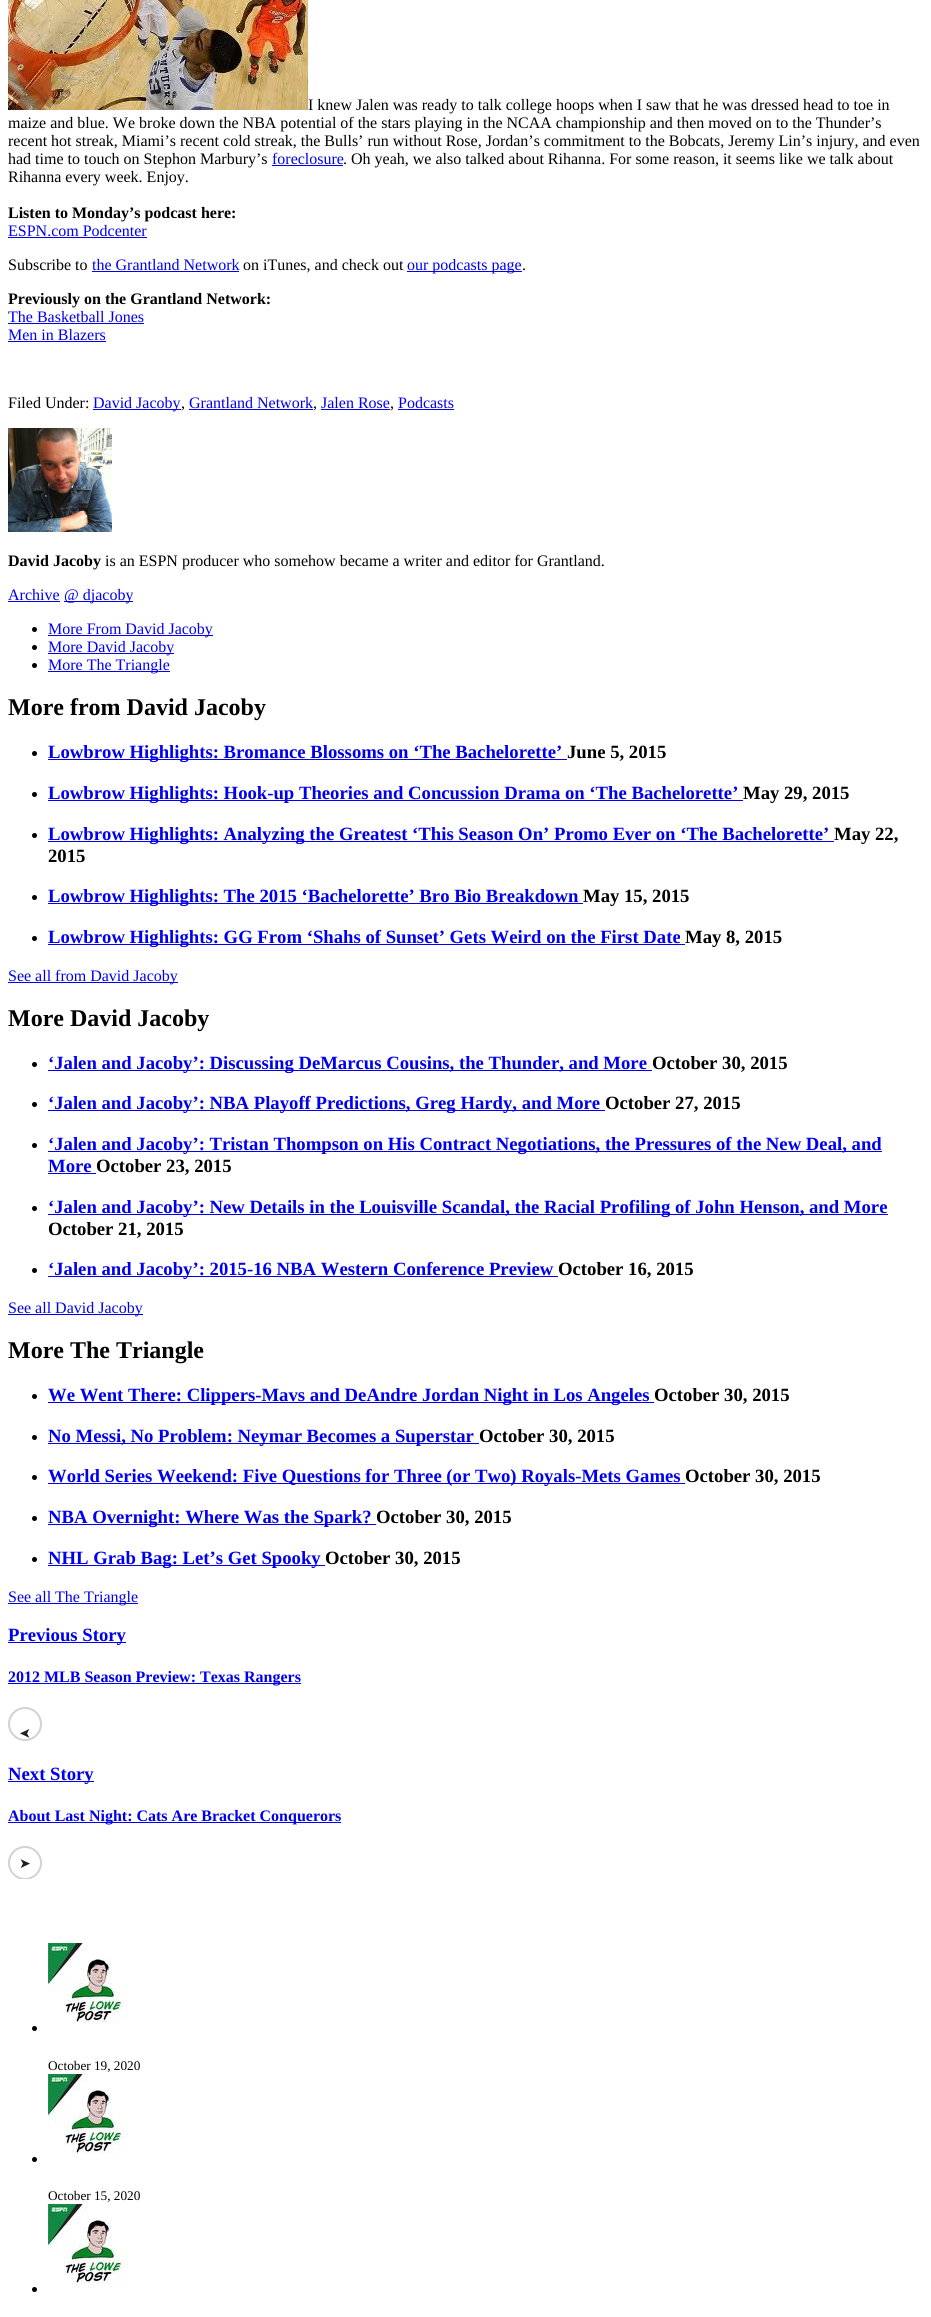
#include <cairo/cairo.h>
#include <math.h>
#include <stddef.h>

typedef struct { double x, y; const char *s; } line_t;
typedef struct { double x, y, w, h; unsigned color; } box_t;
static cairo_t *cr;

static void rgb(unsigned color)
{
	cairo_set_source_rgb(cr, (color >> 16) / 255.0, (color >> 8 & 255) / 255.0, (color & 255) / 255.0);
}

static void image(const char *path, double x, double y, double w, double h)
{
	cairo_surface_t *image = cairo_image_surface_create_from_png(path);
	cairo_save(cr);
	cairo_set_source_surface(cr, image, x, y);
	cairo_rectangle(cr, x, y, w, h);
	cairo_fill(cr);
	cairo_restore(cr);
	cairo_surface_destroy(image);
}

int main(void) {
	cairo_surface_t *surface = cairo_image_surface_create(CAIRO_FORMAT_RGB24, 931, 2317);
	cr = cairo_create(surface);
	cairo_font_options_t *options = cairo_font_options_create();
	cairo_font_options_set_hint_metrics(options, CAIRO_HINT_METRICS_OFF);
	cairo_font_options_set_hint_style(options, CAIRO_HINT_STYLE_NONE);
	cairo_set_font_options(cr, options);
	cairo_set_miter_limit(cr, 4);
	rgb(0xffffff);
	cairo_paint(cr);
	image("img/1.png", 8, 0, 300, 110);
	{
		static const box_t items[] = {
			{272, 165, 71, 1, 0x0000ee},
			{8, 237, 139, 1, 0x0000ee},
			{92, 271, 147, 1, 0x0000ee},
			{407, 271, 115, 1, 0x0000ee},
			{8, 323, 136, 1, 0x0000ee},
			{8, 341, 98, 1, 0x0000ee},
			{93, 409, 88, 1, 0x0000ee},
			{189, 409, 124, 1, 0x0000ee},
			{321, 409, 69, 1, 0x0000ee},
			{398, 409, 56, 1, 0x0000ee},
		};
		for (size_t i = 0; i < sizeof items / sizeof *items; i++) {
			rgb(items[i].color);
			cairo_rectangle(cr, items[i].x, items[i].y, items[i].w, items[i].h);
			cairo_fill(cr);
		}
	}
	image("img/2.png", 8, 428, 104, 104);
	cairo_rectangle(cr, 8, 601, 52, 1);
	cairo_fill(cr);
	cairo_rectangle(cr, 64, 601, 69, 1);
	cairo_fill(cr);
	rgb(0x000000);
	cairo_arc(cr, 34.5, 629.5, 2.5, 0, 2 * M_PI);
	cairo_fill(cr);
	rgb(0x0000ee);
	cairo_rectangle(cr, 48, 635, 165, 1);
	cairo_fill(cr);
	rgb(0x000000);
	cairo_arc(cr, 34.5, 647.5, 2.5, 0, 2 * M_PI);
	cairo_fill(cr);
	rgb(0x0000ee);
	cairo_rectangle(cr, 48, 653, 126, 1);
	cairo_fill(cr);
	rgb(0x000000);
	cairo_arc(cr, 34.5, 665.5, 2.5, 0, 2 * M_PI);
	cairo_fill(cr);
	rgb(0x0000ee);
	cairo_rectangle(cr, 48, 671, 122, 1);
	cairo_fill(cr);
	rgb(0x000000);
	cairo_arc(cr, 34.5, 753.5, 2.5, 0, 2 * M_PI);
	cairo_fill(cr);
	rgb(0x0000ee);
	cairo_rectangle(cr, 48, 759, 519, 1);
	cairo_fill(cr);
	rgb(0x000000);
	cairo_arc(cr, 34.5, 794.5, 2.5, 0, 2 * M_PI);
	cairo_fill(cr);
	rgb(0x0000ee);
	cairo_rectangle(cr, 48, 800, 695, 1);
	cairo_fill(cr);
	rgb(0x000000);
	cairo_arc(cr, 34.5, 835.5, 2.5, 0, 2 * M_PI);
	cairo_fill(cr);
	rgb(0x0000ee);
	cairo_rectangle(cr, 48, 841, 786, 1);
	cairo_fill(cr);
	rgb(0x000000);
	cairo_arc(cr, 34.5, 897.5, 2.5, 0, 2 * M_PI);
	cairo_fill(cr);
	rgb(0x0000ee);
	cairo_rectangle(cr, 48, 903, 535, 1);
	cairo_fill(cr);
	rgb(0x000000);
	cairo_arc(cr, 34.5, 938.5, 2.5, 0, 2 * M_PI);
	cairo_fill(cr);
	rgb(0x0000ee);
	cairo_rectangle(cr, 48, 944, 637, 1);
	cairo_fill(cr);
	cairo_rectangle(cr, 8, 982, 170, 1);
	cairo_fill(cr);
	rgb(0x000000);
	cairo_arc(cr, 34.5, 1064.5, 2.5, 0, 2 * M_PI);
	cairo_fill(cr);
	rgb(0x0000ee);
	cairo_rectangle(cr, 48, 1070, 604, 1);
	cairo_fill(cr);
	rgb(0x000000);
	cairo_arc(cr, 34.5, 1104.5, 2.5, 0, 2 * M_PI);
	cairo_fill(cr);
	rgb(0x0000ee);
	cairo_rectangle(cr, 48, 1110, 557, 1);
	cairo_fill(cr);
	rgb(0x000000);
	cairo_arc(cr, 34.5, 1145.5, 2.5, 0, 2 * M_PI);
	cairo_fill(cr);
	rgb(0x0000ee);
	cairo_rectangle(cr, 48, 1151, 834, 1);
	cairo_fill(cr);
	cairo_rectangle(cr, 48, 1173, 48, 1);
	cairo_fill(cr);
	rgb(0x000000);
	cairo_arc(cr, 34.5, 1208.5, 2.5, 0, 2 * M_PI);
	cairo_fill(cr);
	rgb(0x0000ee);
	cairo_rectangle(cr, 48, 1214, 840, 1);
	cairo_fill(cr);
	rgb(0x000000);
	cairo_arc(cr, 34.5, 1270.5, 2.5, 0, 2 * M_PI);
	cairo_fill(cr);
	rgb(0x0000ee);
	cairo_rectangle(cr, 48, 1276, 510, 1);
	cairo_fill(cr);
	cairo_rectangle(cr, 8, 1314, 135, 1);
	cairo_fill(cr);
	rgb(0x000000);
	cairo_arc(cr, 34.5, 1396.5, 2.5, 0, 2 * M_PI);
	cairo_fill(cr);
	rgb(0x0000ee);
	cairo_rectangle(cr, 48, 1402, 606, 1);
	cairo_fill(cr);
	rgb(0x000000);
	cairo_arc(cr, 34.5, 1437.5, 2.5, 0, 2 * M_PI);
	cairo_fill(cr);
	rgb(0x0000ee);
	cairo_rectangle(cr, 48, 1443, 431, 1);
	cairo_fill(cr);
	rgb(0x000000);
	cairo_arc(cr, 34.5, 1477.5, 2.5, 0, 2 * M_PI);
	cairo_fill(cr);
	rgb(0x0000ee);
	cairo_rectangle(cr, 48, 1483, 637, 1);
	cairo_fill(cr);
	rgb(0x000000);
	cairo_arc(cr, 34.5, 1518.5, 2.5, 0, 2 * M_PI);
	cairo_fill(cr);
	rgb(0x0000ee);
	cairo_rectangle(cr, 48, 1524, 328, 1);
	cairo_fill(cr);
	rgb(0x000000);
	cairo_arc(cr, 34.5, 1559.5, 2.5, 0, 2 * M_PI);
	cairo_fill(cr);
	{
		static const box_t items[] = {
			{48, 1565, 277, 1, 0x0000ee},
			{8, 1603, 130, 1, 0x0000ee},
			{8, 1642, 118, 1, 0x0000ee},
			{8, 1683, 293, 1, 0x0000ee},
		};
		for (size_t i = 0; i < sizeof items / sizeof *items; i++) {
			rgb(items[i].color);
			cairo_rectangle(cr, items[i].x, items[i].y, items[i].w, items[i].h);
			cairo_fill(cr);
		}
	}
	cairo_arc(cr, 25, 1724, 16, 0, 2 * M_PI);
	rgb(0xd0d2d3);
	cairo_stroke(cr);
	rgb(0x0000ee);
	cairo_rectangle(cr, 8, 1781, 86, 1);
	cairo_fill(cr);
	cairo_rectangle(cr, 8, 1822, 333, 1);
	cairo_fill(cr);
	cairo_save(cr);
	cairo_rectangle(cr, 8, 1846, 34, 33);
	cairo_clip(cr);
	cairo_arc(cr, 25, 1863, 16, 0, 2 * M_PI);
	rgb(0xd0d2d3);
	cairo_stroke(cr);
	cairo_restore(cr);
	rgb(0x000000);
	cairo_arc(cr, 34.5, 2028.5, 2.5, 0, 2 * M_PI);
	cairo_fill(cr);
	image("img/3.png", 48, 1943, 80, 80);
	cairo_arc(cr, 34.5, 2159.5, 2.5, 0, 2 * M_PI);
	cairo_fill(cr);
	image("img/3.png", 48, 2074, 80, 80);
	image("img/3.png", 48, 2204, 80, 80);
	cairo_arc(cr, 34.5, 2289.5, 2.5, 0, 2 * M_PI);
	cairo_fill(cr);
	cairo_select_font_face(cr, "Liberation Serif", CAIRO_FONT_SLANT_NORMAL, CAIRO_FONT_WEIGHT_NORMAL);
	cairo_set_font_size(cr, 16);
	{
		static const line_t items[] = {
			{308, 110, "I knew Jalen was ready to talk college hoops when I saw that he was dressed head to toe in"},
			{8, 128, "maize and blue. We broke down the NBA potential of the stars playing in the NCAA championship and then moved on to the Thunder’s"},
			{8, 146, "recent hot streak, Miami’s recent cold streak, the Bulls’ run without Rose, Jordan’s commitment to the Bobcats, Jeremy Lin’s injury, and even"},
			{8, 164, "had time to touch on Stephon Marbury’s"},
		};
		for (size_t i = 0; i < sizeof items / sizeof *items; i++) {
			cairo_move_to(cr, items[i].x, items[i].y);
			cairo_show_text(cr, items[i].s);
		}
	}
	rgb(0x0000ee);
	cairo_move_to(cr, 272, 164);
	cairo_show_text(cr, "foreclosure");
	rgb(0x000000);
	cairo_move_to(cr, 343, 164);
	cairo_show_text(cr, ". Oh yeah, we also talked about Rihanna. For some reason, it seems like we talk about");
	cairo_move_to(cr, 8, 182);
	cairo_show_text(cr, "Rihanna every week. Enjoy.");
	cairo_select_font_face(cr, "Liberation Serif", CAIRO_FONT_SLANT_NORMAL, CAIRO_FONT_WEIGHT_BOLD);
	cairo_move_to(cr, 8, 218);
	cairo_show_text(cr, "Listen to Monday’s podcast here:");
	cairo_select_font_face(cr, "Liberation Serif", CAIRO_FONT_SLANT_NORMAL, CAIRO_FONT_WEIGHT_NORMAL);
	rgb(0x0000ee);
	cairo_move_to(cr, 8, 236);
	cairo_show_text(cr, "ESPN.com Podcenter");
	rgb(0x000000);
	cairo_move_to(cr, 8, 270);
	cairo_show_text(cr, "Subscribe to");
	rgb(0x0000ee);
	cairo_move_to(cr, 92, 270);
	cairo_show_text(cr, "the Grantland Network");
	rgb(0x000000);
	cairo_move_to(cr, 243, 270);
	cairo_show_text(cr, "on iTunes, and check out");
	rgb(0x0000ee);
	cairo_move_to(cr, 407, 270);
	cairo_show_text(cr, "our podcasts page");
	rgb(0x000000);
	cairo_move_to(cr, 522, 270);
	cairo_show_text(cr, ".");
	cairo_select_font_face(cr, "Liberation Serif", CAIRO_FONT_SLANT_NORMAL, CAIRO_FONT_WEIGHT_BOLD);
	cairo_move_to(cr, 8, 304);
	cairo_show_text(cr, "Previously on the Grantland Network:");
	cairo_select_font_face(cr, "Liberation Serif", CAIRO_FONT_SLANT_NORMAL, CAIRO_FONT_WEIGHT_NORMAL);
	rgb(0x0000ee);
	cairo_move_to(cr, 8, 322);
	cairo_show_text(cr, "The Basketball Jones");
	cairo_move_to(cr, 8, 340);
	cairo_show_text(cr, "Men in Blazers");
	rgb(0x000000);
	cairo_move_to(cr, 8, 408);
	cairo_show_text(cr, "Filed Under:");
	rgb(0x0000ee);
	cairo_move_to(cr, 93, 408);
	cairo_show_text(cr, "David Jacoby");
	rgb(0x000000);
	cairo_move_to(cr, 181, 408);
	cairo_show_text(cr, ",");
	rgb(0x0000ee);
	cairo_move_to(cr, 189, 408);
	cairo_show_text(cr, "Grantland Network");
	rgb(0x000000);
	cairo_move_to(cr, 313, 408);
	cairo_show_text(cr, ",");
	rgb(0x0000ee);
	cairo_move_to(cr, 321, 408);
	cairo_show_text(cr, "Jalen Rose");
	rgb(0x000000);
	cairo_move_to(cr, 390, 408);
	cairo_show_text(cr, ",");
	rgb(0x0000ee);
	cairo_move_to(cr, 398, 408);
	cairo_show_text(cr, "Podcasts");
	cairo_select_font_face(cr, "Liberation Serif", CAIRO_FONT_SLANT_NORMAL, CAIRO_FONT_WEIGHT_BOLD);
	rgb(0x000000);
	cairo_move_to(cr, 8, 566);
	cairo_show_text(cr, "David Jacoby");
	cairo_select_font_face(cr, "Liberation Serif", CAIRO_FONT_SLANT_NORMAL, CAIRO_FONT_WEIGHT_NORMAL);
	cairo_move_to(cr, 105, 566);
	cairo_show_text(cr, "is an ESPN producer who somehow became a writer and editor for Grantland.");
	rgb(0x0000ee);
	{
		static const line_t items[] = {
			{8, 600, "Archive"},
			{64, 600, "@ djacoby"},
			{48, 634, "More From David Jacoby"},
			{48, 652, "More David Jacoby"},
			{48, 670, "More The Triangle"},
		};
		for (size_t i = 0; i < sizeof items / sizeof *items; i++) {
			cairo_move_to(cr, items[i].x, items[i].y);
			cairo_show_text(cr, items[i].s);
		}
	}
	cairo_select_font_face(cr, "Liberation Serif", CAIRO_FONT_SLANT_NORMAL, CAIRO_FONT_WEIGHT_BOLD);
	cairo_set_font_size(cr, 24);
	rgb(0x000000);
	cairo_move_to(cr, 8, 715);
	cairo_show_text(cr, "More from David Jacoby");
	cairo_set_font_size(cr, 18.7);
	rgb(0x0000ee);
	cairo_move_to(cr, 48, 758);
	cairo_show_text(cr, "Lowbrow Highlights: Bromance Blossoms on ‘The Bachelorette’");
	rgb(0x000000);
	cairo_move_to(cr, 567, 758);
	cairo_show_text(cr, "June 5, 2015");
	rgb(0x0000ee);
	cairo_move_to(cr, 48, 799);
	cairo_show_text(cr, "Lowbrow Highlights: Hook-up Theories and Concussion Drama on ‘The Bachelorette’");
	rgb(0x000000);
	cairo_move_to(cr, 743, 799);
	cairo_show_text(cr, "May 29, 2015");
	rgb(0x0000ee);
	cairo_move_to(cr, 48, 840);
	cairo_show_text(cr, "Lowbrow Highlights: Analyzing the Greatest ‘This Season On’ Promo Ever on ‘The Bachelorette’");
	rgb(0x000000);
	cairo_move_to(cr, 834, 840);
	cairo_show_text(cr, "May 22,");
	cairo_move_to(cr, 48, 862);
	cairo_show_text(cr, "2015");
	rgb(0x0000ee);
	cairo_move_to(cr, 48, 902);
	cairo_show_text(cr, "Lowbrow Highlights: The 2015 ‘Bachelorette’ Bro Bio Breakdown");
	rgb(0x000000);
	cairo_move_to(cr, 583, 902);
	cairo_show_text(cr, "May 15, 2015");
	rgb(0x0000ee);
	cairo_move_to(cr, 48, 943);
	cairo_show_text(cr, "Lowbrow Highlights: GG From ‘Shahs of Sunset’ Gets Weird on the First Date");
	rgb(0x000000);
	cairo_move_to(cr, 685, 943);
	cairo_show_text(cr, "May 8, 2015");
	cairo_select_font_face(cr, "Liberation Serif", CAIRO_FONT_SLANT_NORMAL, CAIRO_FONT_WEIGHT_NORMAL);
	cairo_set_font_size(cr, 16);
	rgb(0x0000ee);
	cairo_move_to(cr, 8, 981);
	cairo_show_text(cr, "See all from David Jacoby");
	cairo_select_font_face(cr, "Liberation Serif", CAIRO_FONT_SLANT_NORMAL, CAIRO_FONT_WEIGHT_BOLD);
	cairo_set_font_size(cr, 24);
	rgb(0x000000);
	cairo_move_to(cr, 8, 1026);
	cairo_show_text(cr, "More David Jacoby");
	cairo_set_font_size(cr, 18.7);
	rgb(0x0000ee);
	cairo_move_to(cr, 48, 1069);
	cairo_show_text(cr, "‘Jalen and Jacoby’: Discussing DeMarcus Cousins, the Thunder, and More");
	rgb(0x000000);
	cairo_move_to(cr, 652, 1069);
	cairo_show_text(cr, "October 30, 2015");
	rgb(0x0000ee);
	cairo_move_to(cr, 48, 1109);
	cairo_show_text(cr, "‘Jalen and Jacoby’: NBA Playoff Predictions, Greg Hardy, and More");
	rgb(0x000000);
	cairo_move_to(cr, 605, 1109);
	cairo_show_text(cr, "October 27, 2015");
	rgb(0x0000ee);
	cairo_move_to(cr, 48, 1150);
	cairo_show_text(cr, "‘Jalen and Jacoby’: Tristan Thompson on His Contract Negotiations, the Pressures of the New Deal, and");
	cairo_move_to(cr, 48, 1172);
	cairo_show_text(cr, "More");
	rgb(0x000000);
	cairo_move_to(cr, 96, 1172);
	cairo_show_text(cr, "October 23, 2015");
	rgb(0x0000ee);
	cairo_move_to(cr, 48, 1213);
	cairo_show_text(cr, "‘Jalen and Jacoby’: New Details in the Louisville Scandal, the Racial Profiling of John Henson, and More");
	rgb(0x000000);
	cairo_move_to(cr, 48, 1235);
	cairo_show_text(cr, "October 21, 2015");
	rgb(0x0000ee);
	cairo_move_to(cr, 48, 1275);
	cairo_show_text(cr, "‘Jalen and Jacoby’: 2015-16 NBA Western Conference Preview");
	rgb(0x000000);
	cairo_move_to(cr, 558, 1275);
	cairo_show_text(cr, "October 16, 2015");
	cairo_select_font_face(cr, "Liberation Serif", CAIRO_FONT_SLANT_NORMAL, CAIRO_FONT_WEIGHT_NORMAL);
	cairo_set_font_size(cr, 16);
	rgb(0x0000ee);
	cairo_move_to(cr, 8, 1313);
	cairo_show_text(cr, "See all David Jacoby");
	cairo_select_font_face(cr, "Liberation Serif", CAIRO_FONT_SLANT_NORMAL, CAIRO_FONT_WEIGHT_BOLD);
	cairo_set_font_size(cr, 24);
	rgb(0x000000);
	cairo_move_to(cr, 8, 1358);
	cairo_show_text(cr, "More The Triangle");
	cairo_set_font_size(cr, 18.7);
	rgb(0x0000ee);
	cairo_move_to(cr, 48, 1401);
	cairo_show_text(cr, "We Went There: Clippers-Mavs and DeAndre Jordan Night in Los Angeles");
	rgb(0x000000);
	cairo_move_to(cr, 654, 1401);
	cairo_show_text(cr, "October 30, 2015");
	rgb(0x0000ee);
	cairo_move_to(cr, 48, 1442);
	cairo_show_text(cr, "No Messi, No Problem: Neymar Becomes a Superstar");
	rgb(0x000000);
	cairo_move_to(cr, 479, 1442);
	cairo_show_text(cr, "October 30, 2015");
	rgb(0x0000ee);
	cairo_move_to(cr, 48, 1482);
	cairo_show_text(cr, "World Series Weekend: Five Questions for Three (or Two) Royals-Mets Games");
	rgb(0x000000);
	cairo_move_to(cr, 685, 1482);
	cairo_show_text(cr, "October 30, 2015");
	rgb(0x0000ee);
	cairo_move_to(cr, 48, 1523);
	cairo_show_text(cr, "NBA Overnight: Where Was the Spark?");
	rgb(0x000000);
	cairo_move_to(cr, 376, 1523);
	cairo_show_text(cr, "October 30, 2015");
	rgb(0x0000ee);
	cairo_move_to(cr, 48, 1564);
	cairo_show_text(cr, "NHL Grab Bag: Let’s Get Spooky");
	rgb(0x000000);
	cairo_move_to(cr, 325, 1564);
	cairo_show_text(cr, "October 30, 2015");
	cairo_select_font_face(cr, "Liberation Serif", CAIRO_FONT_SLANT_NORMAL, CAIRO_FONT_WEIGHT_NORMAL);
	cairo_set_font_size(cr, 16);
	rgb(0x0000ee);
	cairo_move_to(cr, 8, 1602);
	cairo_show_text(cr, "See all The Triangle");
	cairo_select_font_face(cr, "Liberation Serif", CAIRO_FONT_SLANT_NORMAL, CAIRO_FONT_WEIGHT_BOLD);
	cairo_set_font_size(cr, 18.7);
	cairo_move_to(cr, 8, 1641);
	cairo_show_text(cr, "Previous Story");
	cairo_set_font_size(cr, 16);
	cairo_move_to(cr, 8, 1682);
	cairo_show_text(cr, "2012 MLB Season Preview: Texas Rangers");
	cairo_select_font_face(cr, "DejaVu Sans", CAIRO_FONT_SLANT_NORMAL, CAIRO_FONT_WEIGHT_NORMAL);
	cairo_set_font_size(cr, 14);
	rgb(0x231f20);
	cairo_save(cr);
	cairo_translate(cr, 31, 1729);
	cairo_rotate(cr, 180 * M_PI / 180);
	cairo_move_to(cr, 0, 0);
	cairo_show_text(cr, "➤");
	cairo_restore(cr);
	cairo_select_font_face(cr, "Liberation Serif", CAIRO_FONT_SLANT_NORMAL, CAIRO_FONT_WEIGHT_BOLD);
	cairo_set_font_size(cr, 18.7);
	rgb(0x0000ee);
	cairo_move_to(cr, 8, 1780);
	cairo_show_text(cr, "Next Story");
	cairo_set_font_size(cr, 16);
	cairo_move_to(cr, 8, 1821);
	cairo_show_text(cr, "About Last Night: Cats Are Bracket Conquerors");
	cairo_select_font_face(cr, "DejaVu Sans", CAIRO_FONT_SLANT_NORMAL, CAIRO_FONT_WEIGHT_NORMAL);
	cairo_set_font_size(cr, 14);
	rgb(0x231f20);
	cairo_move_to(cr, 19, 1868);
	cairo_show_text(cr, "➤");
	cairo_select_font_face(cr, "Liberation Serif", CAIRO_FONT_SLANT_NORMAL, CAIRO_FONT_WEIGHT_NORMAL);
	cairo_set_font_size(cr, 13.25);
	rgb(0x000000);
	cairo_move_to(cr, 48, 2070);
	cairo_show_text(cr, "October 19, 2020");
	cairo_move_to(cr, 48, 2200);
	cairo_show_text(cr, "October 15, 2020");
	cairo_surface_write_to_png(surface, "page.png");
	cairo_font_options_destroy(options);
	cairo_destroy(cr);
	cairo_surface_destroy(surface);
	return 0;
}
